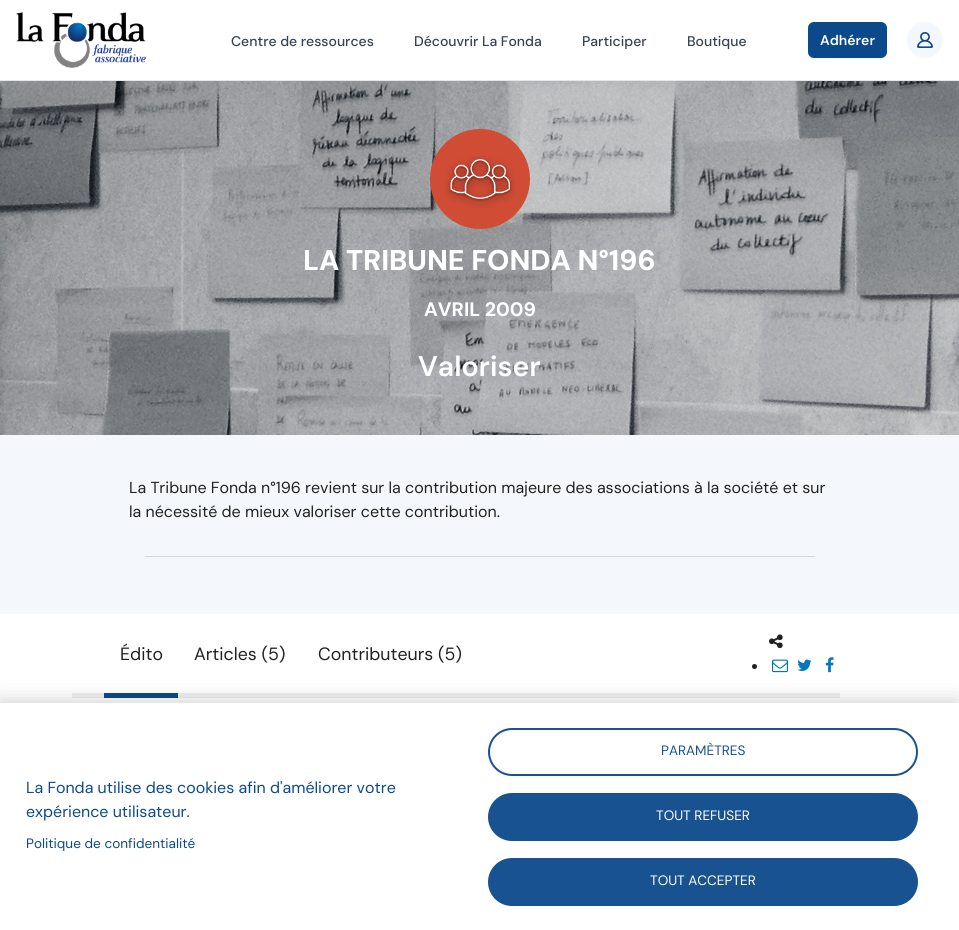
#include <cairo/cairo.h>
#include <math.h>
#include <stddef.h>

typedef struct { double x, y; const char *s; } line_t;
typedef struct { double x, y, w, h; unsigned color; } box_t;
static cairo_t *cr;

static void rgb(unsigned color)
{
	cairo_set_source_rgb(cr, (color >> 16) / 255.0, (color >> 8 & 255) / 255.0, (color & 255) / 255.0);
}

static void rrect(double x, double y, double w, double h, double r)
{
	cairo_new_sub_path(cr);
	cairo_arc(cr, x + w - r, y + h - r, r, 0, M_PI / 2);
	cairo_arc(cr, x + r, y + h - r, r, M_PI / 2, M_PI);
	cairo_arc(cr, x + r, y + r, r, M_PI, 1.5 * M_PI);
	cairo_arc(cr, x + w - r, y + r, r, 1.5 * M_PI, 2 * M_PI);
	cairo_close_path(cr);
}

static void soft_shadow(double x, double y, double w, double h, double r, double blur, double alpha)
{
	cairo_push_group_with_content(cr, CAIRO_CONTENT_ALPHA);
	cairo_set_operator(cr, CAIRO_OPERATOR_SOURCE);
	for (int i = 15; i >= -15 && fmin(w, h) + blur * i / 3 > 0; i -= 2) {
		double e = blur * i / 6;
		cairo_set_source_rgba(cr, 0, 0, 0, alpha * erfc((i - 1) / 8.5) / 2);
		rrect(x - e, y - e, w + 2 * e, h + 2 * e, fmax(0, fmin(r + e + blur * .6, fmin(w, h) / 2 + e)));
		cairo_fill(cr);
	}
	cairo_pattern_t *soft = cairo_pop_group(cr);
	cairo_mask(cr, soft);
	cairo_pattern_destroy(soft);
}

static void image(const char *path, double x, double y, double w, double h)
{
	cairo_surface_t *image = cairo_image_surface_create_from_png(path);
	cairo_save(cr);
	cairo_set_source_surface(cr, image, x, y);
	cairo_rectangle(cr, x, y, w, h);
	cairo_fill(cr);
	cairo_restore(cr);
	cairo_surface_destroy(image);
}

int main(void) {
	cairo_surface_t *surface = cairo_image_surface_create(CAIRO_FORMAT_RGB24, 959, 930);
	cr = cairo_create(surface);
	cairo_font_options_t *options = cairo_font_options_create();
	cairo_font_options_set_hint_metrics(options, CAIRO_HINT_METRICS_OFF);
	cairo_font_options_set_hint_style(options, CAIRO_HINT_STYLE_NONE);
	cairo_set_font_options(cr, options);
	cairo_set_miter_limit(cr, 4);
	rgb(0xffffff);
	cairo_paint(cr);
	rgb(0xe5e7eb);
	cairo_rectangle(cr, 0, 80, 959, 1);
	cairo_fill(cr);
	image("img/1.png", 16, 12, 130, 56);
	rgb(0x000000);
	soft_shadow(808, 23, 79, 36, 6, 1, 0.05);
	rgb(0x0c498b);
	rrect(808, 22, 79, 36, 6);
	cairo_fill(cr);
	rgb(0xf4f8fc);
	cairo_arc(cr, 925, 40, 18, 0, 2 * M_PI);
	cairo_fill(cr);
	image("img/2.png", 917, 32, 16, 16);
	image("img/3.png", 0, 81, 959, 354);
	rgb(0xd04c35);
	cairo_arc(cr, 480, 179, 50, 0, 2 * M_PI);
	cairo_fill(cr);
	image("img/4.png", 444, 155, 72, 53);
	{
		static const box_t items[] = {
			{0, 435, 959, 179, 0xf4f8fc},
			{145, 556, 670, 1, 0xd8d8d8},
			{72, 693, 768, 5, 0xeeeeee},
			{104, 693, 74, 5, 0x0c498b},
		};
		for (size_t i = 0; i < sizeof items / sizeof *items; i++) {
			rgb(items[i].color);
			cairo_rectangle(cr, items[i].x, items[i].y, items[i].w, items[i].h);
			cairo_fill(cr);
		}
	}
	image("img/5.png", 769, 634, 14, 15);
	rgb(0x212121);
	cairo_arc(cr, 754.5, 666.5, 2.5, 0, 2 * M_PI);
	cairo_fill(cr);
	image("img/6.png", 772, 659, 16, 14);
	image("img/7.png", 797, 659, 15, 12);
	image("img/8.png", 825, 657, 9, 16);
	rgb(0x000000);
	soft_shadow(-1, 702, 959, 227, 0, 10, 0.2);
	rgb(0xffffff);
	cairo_rectangle(cr, 0, 703, 959, 227);
	cairo_fill(cr);
	rrect(489, 729, 428, 46, 23);
	rgb(0x185291);
	cairo_stroke(cr);
	rrect(489, 794, 428, 46, 23);
	cairo_fill_preserve(cr);
	cairo_stroke(cr);
	rrect(489, 859, 428, 46, 23);
	cairo_fill_preserve(cr);
	cairo_stroke(cr);
	cairo_select_font_face(cr, "DM Sans Medium", CAIRO_FONT_SLANT_NORMAL, CAIRO_FONT_WEIGHT_NORMAL);
	cairo_set_font_size(cr, 14);
	rgb(0x374151);
	{
		static const line_t items[] = {
			{231, 46, "Centre de ressources"},
			{414, 46, "Découvrir La Fonda"},
			{582, 46, "Participer"},
			{687, 46, "Boutique"},
		};
		for (size_t i = 0; i < sizeof items / sizeof *items; i++) {
			cairo_move_to(cr, items[i].x, items[i].y);
			cairo_show_text(cr, items[i].s);
		}
	}
	cairo_select_font_face(cr, "DM Sans SemiBold", CAIRO_FONT_SLANT_NORMAL, CAIRO_FONT_WEIGHT_NORMAL);
	rgb(0xffffff);
	cairo_move_to(cr, 820, 45);
	cairo_show_text(cr, "Adhérer");
	cairo_select_font_face(cr, "DM Sans ExtraBold", CAIRO_FONT_SLANT_NORMAL, CAIRO_FONT_WEIGHT_NORMAL);
	cairo_set_font_size(cr, 28.5);
	cairo_move_to(cr, 303, 270);
	cairo_show_text(cr, "LA TRIBUNE FONDA N°196");
	cairo_select_font_face(cr, "DM Sans", CAIRO_FONT_SLANT_NORMAL, CAIRO_FONT_WEIGHT_BOLD);
	cairo_set_font_size(cr, 19.5);
	cairo_move_to(cr, 424, 316);
	cairo_show_text(cr, "AVRIL 2009");
	cairo_select_font_face(cr, "DM Sans SemiBold", CAIRO_FONT_SLANT_NORMAL, CAIRO_FONT_WEIGHT_NORMAL);
	cairo_set_font_size(cr, 28.5);
	cairo_move_to(cr, 418, 376);
	cairo_show_text(cr, "Valoriser");
	cairo_select_font_face(cr, "DM Sans", CAIRO_FONT_SLANT_NORMAL, CAIRO_FONT_WEIGHT_NORMAL);
	cairo_set_font_size(cr, 16);
	rgb(0x212121);
	cairo_move_to(cr, 129, 493);
	cairo_show_text(cr, "La Tribune Fonda n°196 revient sur la contribution majeure des associations à la société et sur");
	cairo_move_to(cr, 129, 517);
	cairo_show_text(cr, "la nécessité de mieux valoriser cette contribution.");
	cairo_set_font_size(cr, 17.75);
	{
		static const line_t items[] = {
			{120, 660, "Édito"},
			{194, 660, "Articles (5)"},
			{318, 660, "Contributeurs (5)"},
		};
		for (size_t i = 0; i < sizeof items / sizeof *items; i++) {
			cairo_move_to(cr, items[i].x, items[i].y);
			cairo_show_text(cr, items[i].s);
		}
	}
	cairo_set_font_size(cr, 16);
	rgb(0x0c498b);
	cairo_move_to(cr, 26, 793);
	cairo_show_text(cr, "La Fonda utilise des cookies afin d'améliorer votre");
	cairo_move_to(cr, 26, 817);
	cairo_show_text(cr, "expérience utilisateur.");
	cairo_set_font_size(cr, 13.6);
	cairo_move_to(cr, 26, 848);
	cairo_show_text(cr, "Politique de confidentialité");
	rgb(0x185291);
	cairo_move_to(cr, 661, 755);
	cairo_show_text(cr, "PARAMÈTRES");
	rgb(0xffffff);
	cairo_move_to(cr, 656, 820);
	cairo_show_text(cr, "TOUT REFUSER");
	cairo_move_to(cr, 650, 885);
	cairo_show_text(cr, "TOUT ACCEPTER");
	cairo_surface_write_to_png(surface, "page.png");
	cairo_font_options_destroy(options);
	cairo_destroy(cr);
	cairo_surface_destroy(surface);
	return 0;
}
